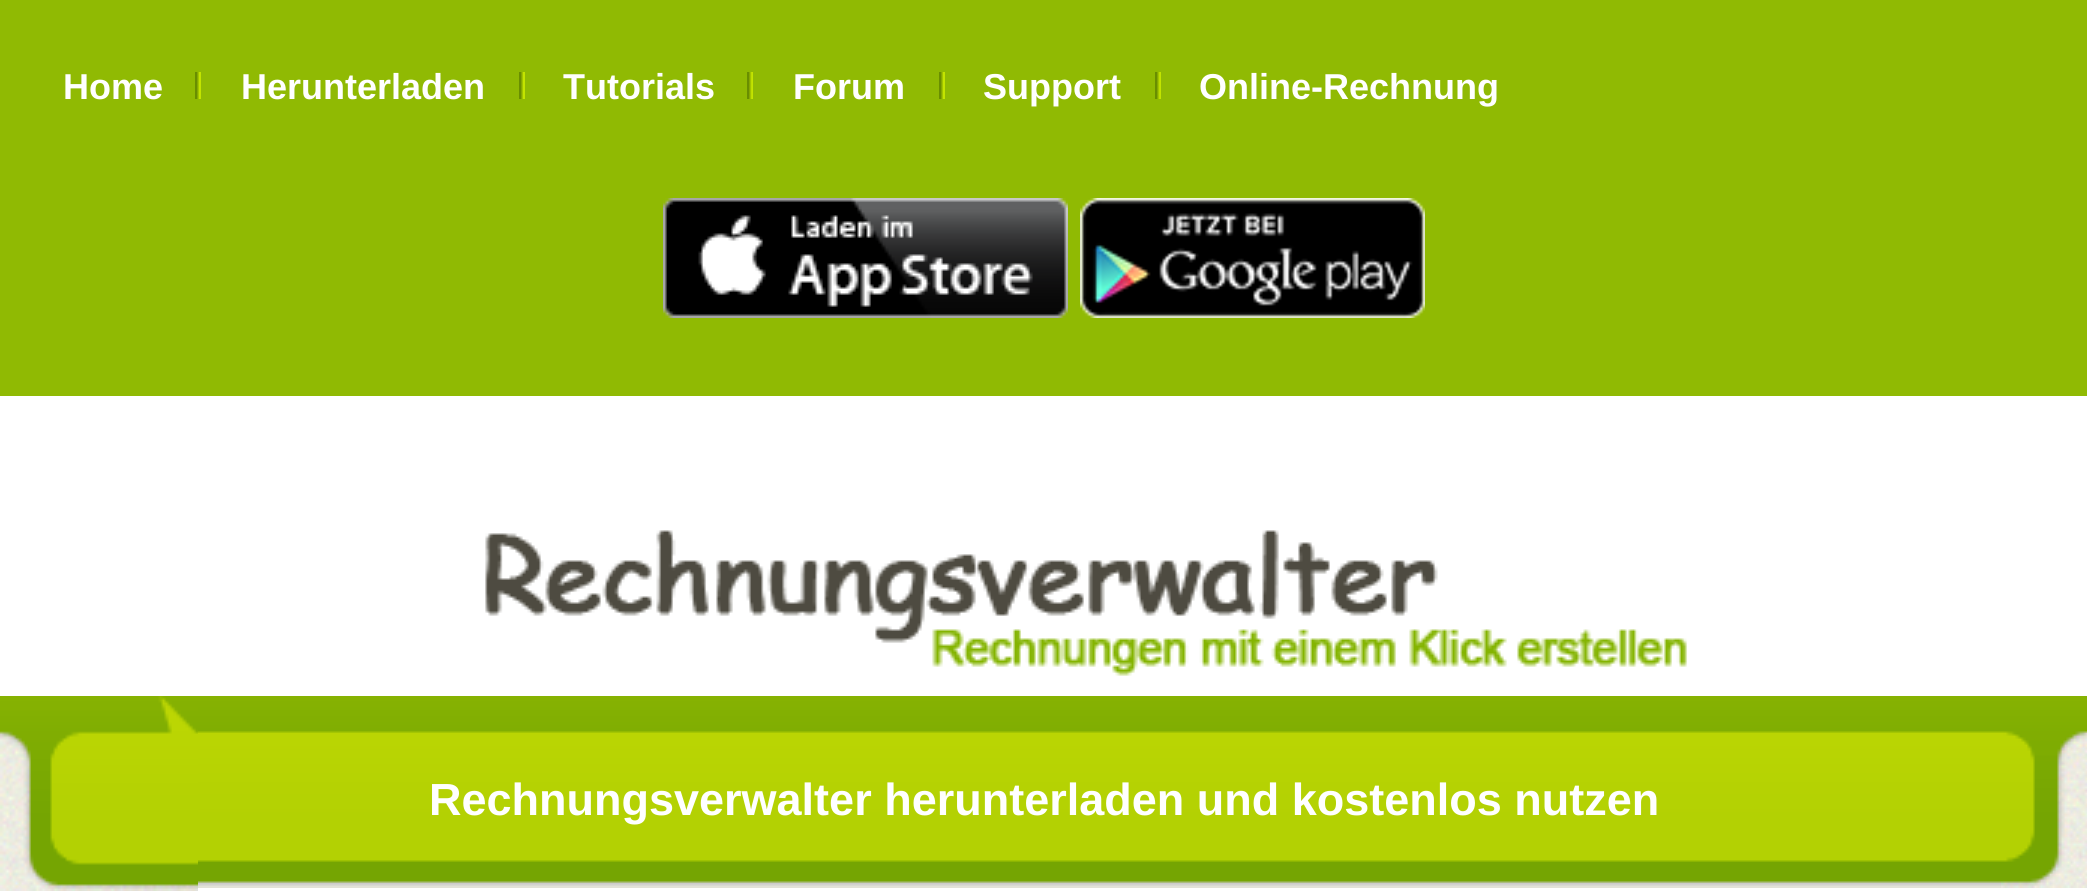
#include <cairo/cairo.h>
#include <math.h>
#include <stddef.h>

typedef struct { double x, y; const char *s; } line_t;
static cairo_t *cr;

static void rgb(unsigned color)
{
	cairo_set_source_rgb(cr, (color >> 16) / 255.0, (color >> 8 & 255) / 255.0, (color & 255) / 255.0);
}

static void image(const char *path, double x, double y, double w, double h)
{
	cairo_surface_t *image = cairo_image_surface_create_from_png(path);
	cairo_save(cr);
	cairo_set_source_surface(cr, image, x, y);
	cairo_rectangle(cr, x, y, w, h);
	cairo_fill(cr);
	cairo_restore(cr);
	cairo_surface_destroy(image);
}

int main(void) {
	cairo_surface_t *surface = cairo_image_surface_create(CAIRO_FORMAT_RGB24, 2087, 893);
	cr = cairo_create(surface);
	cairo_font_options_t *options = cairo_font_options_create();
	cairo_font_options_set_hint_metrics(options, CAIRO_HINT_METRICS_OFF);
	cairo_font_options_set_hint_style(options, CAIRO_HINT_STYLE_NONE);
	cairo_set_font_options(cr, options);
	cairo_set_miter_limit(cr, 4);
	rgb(0x90ba03);
	cairo_paint(cr);
	image("img/1.png", 195, 72, 6, 27);
	image("img/1.png", 519, 72, 6, 27);
	image("img/2.png", 747, 72, 6, 27);
	image("img/1.png", 939, 72, 6, 27);
	image("img/2.png", 1155, 72, 6, 27);
	image("img/3.png", 663, 198, 405, 120);
	image("img/4.png", 1080, 198, 345, 120);
	rgb(0xffffff);
	cairo_rectangle(cr, 0, 396, 2087, 300);
	cairo_fill(cr);
	image("img/5.png", 485, 530, 1202, 146);
	image("img/6.png", 198, 696, 1889, 192);
	image("img/7.png", 2001, 731, 86, 157);
	image("img/8.png", 0, 696, 198, 13);
	cairo_rectangle(cr, 0, 888, 2087, 5);
	cairo_fill(cr);
	image("img/9.png", 0, 709, 198, 182);
	cairo_select_font_face(cr, "Liberation Sans", CAIRO_FONT_SLANT_NORMAL, CAIRO_FONT_WEIGHT_BOLD);
	cairo_set_font_size(cr, 36);
	{
		static const line_t items[] = {
			{63, 99, "Home"},
			{241, 99, "Herunterladen"},
			{563, 99, "Tutorials"},
			{793, 99, "Forum"},
			{983, 99, "Support"},
			{1199, 99, "Online-Rechnung"},
		};
		for (size_t i = 0; i < sizeof items / sizeof *items; i++) {
			cairo_move_to(cr, items[i].x, items[i].y);
			cairo_show_text(cr, items[i].s);
		}
	}
	cairo_set_font_size(cr, 45);
	cairo_move_to(cr, 429, 815);
	cairo_show_text(cr, "Rechnungsverwalter herunterladen und kostenlos nutzen");
	cairo_surface_write_to_png(surface, "page.png");
	cairo_font_options_destroy(options);
	cairo_destroy(cr);
	cairo_surface_destroy(surface);
	return 0;
}
